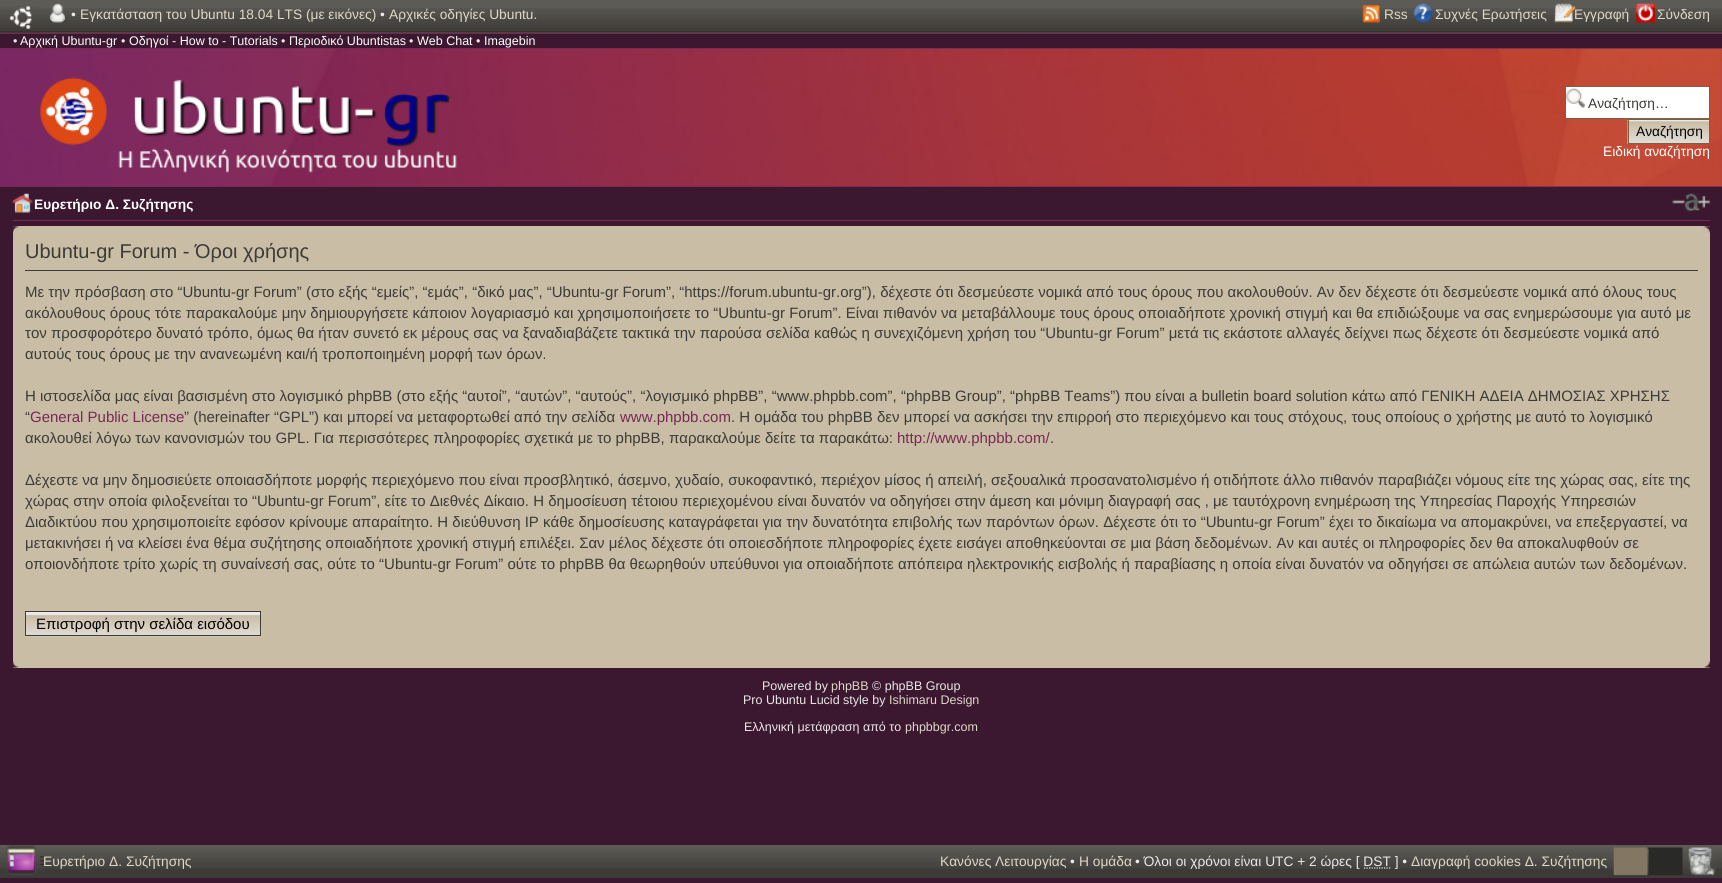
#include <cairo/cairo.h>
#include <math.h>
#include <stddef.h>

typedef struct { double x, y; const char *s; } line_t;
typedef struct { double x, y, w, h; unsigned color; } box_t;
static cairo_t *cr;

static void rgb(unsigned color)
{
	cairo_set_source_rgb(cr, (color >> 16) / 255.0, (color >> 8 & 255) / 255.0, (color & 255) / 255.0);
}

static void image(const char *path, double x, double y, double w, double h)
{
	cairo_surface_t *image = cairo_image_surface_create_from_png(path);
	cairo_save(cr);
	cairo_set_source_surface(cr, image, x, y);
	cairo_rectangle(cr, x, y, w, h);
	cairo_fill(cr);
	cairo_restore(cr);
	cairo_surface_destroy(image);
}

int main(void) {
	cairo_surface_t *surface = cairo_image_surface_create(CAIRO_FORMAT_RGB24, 1722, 883);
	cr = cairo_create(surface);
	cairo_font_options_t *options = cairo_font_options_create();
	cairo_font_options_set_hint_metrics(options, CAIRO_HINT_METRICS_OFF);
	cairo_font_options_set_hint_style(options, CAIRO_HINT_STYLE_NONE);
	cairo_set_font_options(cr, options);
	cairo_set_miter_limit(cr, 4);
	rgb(0x3b1830);
	cairo_paint(cr);
	rgb(0x5c5b56);
	cairo_rectangle(cr, 0, 0, 1722, 33);
	cairo_fill(cr);
	image("img/1.png", 0, 8, 1722, 25);
	image("img/2.png", 0, 6, 40, 27);
	image("img/3.png", 50, 3, 15, 20);
	image("img/4.png", 1362, 5, 18, 18);
	image("img/5.png", 1413, 3, 20, 20);
	image("img/6.png", 1554, 3, 23, 20);
	image("img/7.png", 1636, 3, 19, 20);
	{
		static const box_t items[] = {
			{0, 33, 1722, 1, 0x772953},
			{0, 48, 1722, 1, 0x772953},
			{0, 186, 1722, 1, 0x772953},
		};
		for (size_t i = 0; i < sizeof items / sizeof *items; i++) {
			rgb(items[i].color);
			cairo_rectangle(cr, items[i].x, items[i].y, items[i].w, items[i].h);
			cairo_fill(cr);
		}
	}
	image("img/8.png", 0, 48, 1722, 139);
	image("img/9.png", 39, 77, 418, 96);
	rgb(0xffffff);
	cairo_rectangle(cr, 1566, 87, 143, 31);
	cairo_fill(cr);
	image("img/10.png", 1566, 88, 19, 20);
	cairo_rectangle(cr, 1565.5, 86.5, 144, 32);
	rgb(0x7a6143);
	cairo_set_line_width(cr, 1);
	cairo_stroke(cr);
	image("img/11.png", 1627, 120, 82, 24);
	cairo_rectangle(cr, 1628.5, 119.5, 81, 24);
	cairo_stroke(cr);
	rgb(0x772953);
	cairo_rectangle(cr, 13, 220, 1697, 1);
	cairo_fill(cr);
	image("img/12.png", 12, 193, 21, 20);
	image("img/13.png", 1672, 193, 38, 19);
	rgb(0xcabda6);
	cairo_rectangle(cr, 13, 226, 1697, 442);
	cairo_fill(cr);
	image("img/14.png", 13, 226, 6, 7);
	image("img/15.png", 1703, 226, 7, 7);
	rgb(0x3c3b37);
	cairo_rectangle(cr, 25, 270, 1673, 1);
	cairo_fill(cr);
	rgb(0xe9e9e9);
	cairo_rectangle(cr, 26, 612, 234, 2);
	cairo_fill(cr);
	image("img/16.png", 25, 613, 237, 24);
	cairo_rectangle(cr, 25.5, 611.5, 235, 24);
	rgb(0x3c3b37);
	cairo_stroke(cr);
	image("img/17.png", 13, 661, 6, 7);
	image("img/18.png", 1703, 661, 7, 7);
	cairo_rectangle(cr, 0, 869, 1722, 9);
	cairo_fill(cr);
	image("img/19.png", 0, 845, 1722, 24);
	image("img/20.png", 1612, 847, 104, 29);
	image("img/21.png", 6, 845, 39, 30);
	cairo_new_path(cr);
	cairo_move_to(cr, 1364, 868);
	cairo_line_to(cr, 1391.5, 868);
	rgb(0xe9e9e9);
	cairo_set_line_width(cr, 1.2);
	cairo_set_dash(cr, (double[]){1.25, 1.25}, 2, 0);
	cairo_stroke(cr);
	cairo_select_font_face(cr, "Liberation Sans", CAIRO_FONT_SLANT_NORMAL, CAIRO_FONT_WEIGHT_NORMAL);
	cairo_set_font_size(cr, 13.75);
	cairo_move_to(cr, 71, 19);
	cairo_show_text(cr, "•");
	rgb(0xdfd8c8);
	cairo_move_to(cr, 80, 19);
	cairo_show_text(cr, "Εγκατάσταση του Ubuntu 18.04 LTS (με εικόνες)");
	rgb(0xe9e9e9);
	cairo_move_to(cr, 380, 19);
	cairo_show_text(cr, "•");
	rgb(0xdfd8c8);
	{
		static const line_t items[] = {
			{389, 19, "Αρχικές οδηγίες Ubuntu."},
			{1384, 19, "Rss"},
			{1435, 19, "Συχνές Ερωτήσεις"},
			{1574, 19, "Εγγραφή"},
			{1657, 19, "Σύνδεση"},
		};
		for (size_t i = 0; i < sizeof items / sizeof *items; i++) {
			cairo_move_to(cr, items[i].x, items[i].y);
			cairo_show_text(cr, items[i].s);
		}
	}
	cairo_set_font_size(cr, 12.5);
	rgb(0xe9e9e9);
	cairo_move_to(cr, 13, 45);
	cairo_show_text(cr, "•");
	rgb(0xffffff);
	cairo_move_to(cr, 20, 45);
	cairo_show_text(cr, "Αρχική Ubuntu-gr");
	rgb(0xe9e9e9);
	cairo_move_to(cr, 121, 45);
	cairo_show_text(cr, "•");
	rgb(0xffffff);
	cairo_move_to(cr, 129, 45);
	cairo_show_text(cr, "Οδηγοί - How to - Tutorials");
	rgb(0xe9e9e9);
	cairo_move_to(cr, 281, 45);
	cairo_show_text(cr, "•");
	rgb(0xffffff);
	cairo_move_to(cr, 289, 45);
	cairo_show_text(cr, "Περιοδικό Ubuntistas");
	rgb(0xe9e9e9);
	cairo_move_to(cr, 409, 45);
	cairo_show_text(cr, "•");
	rgb(0xffffff);
	cairo_move_to(cr, 417, 45);
	cairo_show_text(cr, "Web Chat");
	rgb(0xe9e9e9);
	cairo_move_to(cr, 476, 45);
	cairo_show_text(cr, "•");
	rgb(0xffffff);
	cairo_move_to(cr, 484, 45);
	cairo_show_text(cr, "Imagebin");
	cairo_save(cr);
	cairo_rectangle(cr, 1588, 95, 118, 15);
	cairo_clip(cr);
	cairo_set_font_size(cr, 13.75);
	rgb(0x3c3b37);
	cairo_move_to(cr, 1588, 108);
	cairo_show_text(cr, "Αναζήτηση…");
	cairo_restore(cr);
	cairo_set_font_size(cr, 13.75);
	rgb(0x000000);
	cairo_move_to(cr, 1636, 136);
	cairo_show_text(cr, "Αναζήτηση");
	rgb(0xffffff);
	cairo_move_to(cr, 1603, 156);
	cairo_show_text(cr, "Ειδική αναζήτηση");
	cairo_select_font_face(cr, "Liberation Sans", CAIRO_FONT_SLANT_NORMAL, CAIRO_FONT_WEIGHT_BOLD);
	cairo_move_to(cr, 34, 209);
	cairo_show_text(cr, "Ευρετήριο Δ. Συζήτησης");
	cairo_select_font_face(cr, "Liberation Sans", CAIRO_FONT_SLANT_NORMAL, CAIRO_FONT_WEIGHT_NORMAL);
	cairo_set_font_size(cr, 20);
	rgb(0x3c3b37);
	cairo_move_to(cr, 25, 258);
	cairo_show_text(cr, "Ubuntu-gr Forum - Όροι χρήσης");
	cairo_set_font_size(cr, 15);
	{
		static const line_t items[] = {
			{25, 297, "Με την πρόσβαση στο “Ubuntu-gr Forum” (στο εξής “εμείς”, “εμάς”, “δικό μας”, “Ubuntu-gr Forum”, “https://forum.ubuntu-gr.org”), δέχεστε ότι δεσμεύεστε νομικά από τους όρους που ακολουθούν. Αν δεν δέχεστε ότι δεσμεύεστε νομικά από όλους τους"},
			{25, 318, "ακόλουθους όρους τότε παρακαλούμε μην δημιουργήσετε κάποιον λογαριασμό και χρησιμοποιήσετε το “Ubuntu-gr Forum”. Είναι πιθανόν να μεταβάλλουμε τους όρους οποιαδήποτε χρονική στιγμή και θα επιδιώξουμε να σας ενημερώσουμε για αυτό με"},
			{25, 338, "τον προσφορότερο δυνατό τρόπο, όμως θα ήταν συνετό εκ μέρους σας να ξαναδιαβάζετε τακτικά την παρούσα σελίδα καθώς η συνεχιζόμενη χρήση του “Ubuntu-gr Forum” μετά τις εκάστοτε αλλαγές δείχνει πως δέχεστε ότι δεσμεύεστε νομικά από"},
			{25, 359, "αυτούς τους όρους με την ανανεωμένη και/ή τροποποιημένη μορφή των όρων."},
			{25, 401, "Η ιστοσελίδα μας είναι βασισμένη στο λογισμικό phpBB (στο εξής “αυτοί”, “αυτών”, “αυτούς”, “λογισμικό phpBB”, “www.phpbb.com”, “phpBB Group”, “phpBB Teams”) που είναι a bulletin board solution κάτω από ΓΕΝΙΚΗ ΑΔΕΙΑ ΔΗΜΟΣΙΑΣ ΧΡΗΣΗΣ"},
			{25, 422, "“"},
		};
		for (size_t i = 0; i < sizeof items / sizeof *items; i++) {
			cairo_move_to(cr, items[i].x, items[i].y);
			cairo_show_text(cr, items[i].s);
		}
	}
	rgb(0x772953);
	cairo_move_to(cr, 30, 422);
	cairo_show_text(cr, "General Public License");
	rgb(0x3c3b37);
	cairo_move_to(cr, 184, 422);
	cairo_show_text(cr, "” (hereinafter “GPL”) και μπορεί να μεταφορτωθεί από την σελίδα");
	rgb(0x772953);
	cairo_move_to(cr, 620, 422);
	cairo_show_text(cr, "www.phpbb.com");
	rgb(0x3c3b37);
	cairo_move_to(cr, 731, 422);
	cairo_show_text(cr, ". Η ομάδα του phpBB δεν μπορεί να ασκήσει την επιρροή στο περιεχόμενο και τους στόχους, τους οποίους ο χρήστης με αυτό το λογισμικό");
	cairo_move_to(cr, 25, 443);
	cairo_show_text(cr, "ακολουθεί λόγω των κανονισμών του GPL. Για περισσότερες πληροφορίες σχετικά με το phpBB, παρακαλούμε δείτε τα παρακάτω:");
	rgb(0x772953);
	cairo_move_to(cr, 897, 443);
	cairo_show_text(cr, "http://www.phpbb.com/");
	rgb(0x3c3b37);
	{
		static const line_t items[] = {
			{1050, 443, "."},
			{25, 485, "Δέχεστε να μην δημοσιεύετε οποιασδήποτε μορφής περιεχόμενο που είναι προσβλητικό, άσεμνο, χυδαίο, συκοφαντικό, περιέχον μίσος ή απειλή, σεξουαλικά προσανατολισμένο ή οτιδήποτε άλλο πιθανόν παραβιάζει νόμους είτε της χώρας σας, είτε της"},
			{25, 506, "χώρας στην οποία φιλοξενείται το “Ubuntu-gr Forum”, είτε το Διεθνές Δίκαιο. Η δημοσίευση τέτοιου περιεχομένου είναι δυνατόν να οδηγήσει στην άμεση και μόνιμη διαγραφή σας , με ταυτόχρονη ενημέρωση της Υπηρεσίας Παροχής Υπηρεσιών"},
			{25, 527, "Διαδικτύου που χρησιμοποιείτε εφόσον κρίνουμε απαραίτητο. Η διεύθυνση IP κάθε δημοσίευσης καταγράφεται για την δυνατότητα επιβολής των παρόντων όρων. Δέχεστε ότι το “Ubuntu-gr Forum” έχει το δικαίωμα να απομακρύνει, να επεξεργαστεί, να"},
			{25, 548, "μετακινήσει ή να κλείσει ένα θέμα συζήτησης οποιαδήποτε χρονική στιγμή επιλέξει. Σαν μέλος δέχεστε ότι οποιεσδήποτε πληροφορίες έχετε εισάγει αποθηκεύονται σε μια βάση δεδομένων. Αν και αυτές οι πληροφορίες δεν θα αποκαλυφθούν σε"},
			{25, 569, "οποιονδήποτε τρίτο χωρίς τη συναίνεσή σας, ούτε το “Ubuntu-gr Forum” ούτε το phpBB θα θεωρηθούν υπεύθυνοι για οποιαδήποτε απόπειρα ηλεκτρονικής εισβολής ή παραβίασης η οποία είναι δυνατόν να οδηγήσει σε απώλεια αυτών των δεδομένων."},
		};
		for (size_t i = 0; i < sizeof items / sizeof *items; i++) {
			cairo_move_to(cr, items[i].x, items[i].y);
			cairo_show_text(cr, items[i].s);
		}
	}
	rgb(0x000000);
	cairo_move_to(cr, 36, 629);
	cairo_show_text(cr, "Επιστροφή στην σελίδα εισόδου");
	cairo_set_font_size(cr, 12.5);
	rgb(0xe9e9e9);
	cairo_move_to(cr, 762, 690);
	cairo_show_text(cr, "Powered by");
	rgb(0xdfd8c8);
	cairo_move_to(cr, 831, 690);
	cairo_show_text(cr, "phpBB");
	rgb(0xe9e9e9);
	cairo_move_to(cr, 872, 690);
	cairo_show_text(cr, "© phpBB Group");
	cairo_move_to(cr, 743, 704);
	cairo_show_text(cr, "Pro Ubuntu Lucid style by");
	rgb(0xdfd8c8);
	cairo_move_to(cr, 889, 704);
	cairo_show_text(cr, "Ishimaru Design");
	rgb(0xe9e9e9);
	cairo_move_to(cr, 744, 731);
	cairo_show_text(cr, "Ελληνική μετάφραση από το");
	rgb(0xdfd8c8);
	cairo_move_to(cr, 905, 731);
	cairo_show_text(cr, "phpbbgr.com");
	cairo_set_font_size(cr, 13.75);
	cairo_move_to(cr, 43, 866);
	cairo_show_text(cr, "Ευρετήριο Δ. Συζήτησης");
	cairo_move_to(cr, 940, 866);
	cairo_show_text(cr, "Κανόνες Λειτουργίας");
	rgb(0xe9e9e9);
	cairo_move_to(cr, 1070, 866);
	cairo_show_text(cr, "•");
	rgb(0xdfd8c8);
	cairo_move_to(cr, 1079, 866);
	cairo_show_text(cr, "Η ομάδα");
	rgb(0xe9e9e9);
	cairo_move_to(cr, 1135, 866);
	cairo_show_text(cr, "• Όλοι οι χρόνοι είναι UTC + 2 ώρες [ DST ] •");
	rgb(0xdfd8c8);
	cairo_move_to(cr, 1411, 866);
	cairo_show_text(cr, "Διαγραφή cookies Δ. Συζήτησης");
	cairo_surface_write_to_png(surface, "page.png");
	cairo_font_options_destroy(options);
	cairo_destroy(cr);
	cairo_surface_destroy(surface);
	return 0;
}
